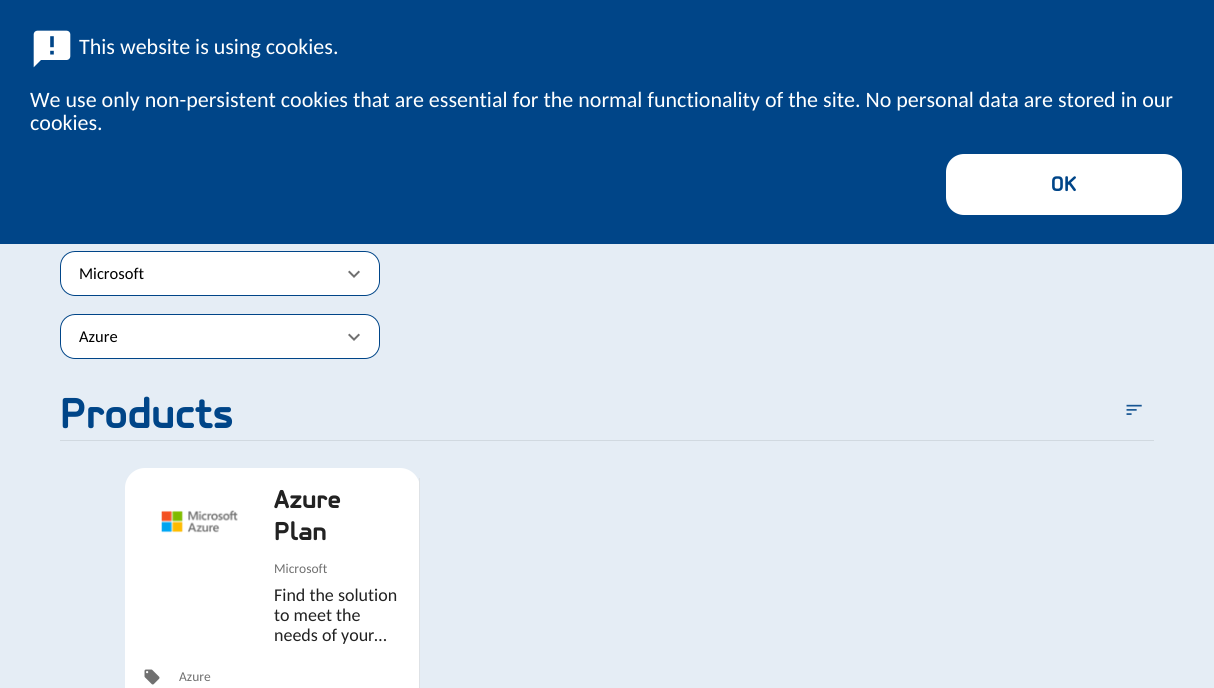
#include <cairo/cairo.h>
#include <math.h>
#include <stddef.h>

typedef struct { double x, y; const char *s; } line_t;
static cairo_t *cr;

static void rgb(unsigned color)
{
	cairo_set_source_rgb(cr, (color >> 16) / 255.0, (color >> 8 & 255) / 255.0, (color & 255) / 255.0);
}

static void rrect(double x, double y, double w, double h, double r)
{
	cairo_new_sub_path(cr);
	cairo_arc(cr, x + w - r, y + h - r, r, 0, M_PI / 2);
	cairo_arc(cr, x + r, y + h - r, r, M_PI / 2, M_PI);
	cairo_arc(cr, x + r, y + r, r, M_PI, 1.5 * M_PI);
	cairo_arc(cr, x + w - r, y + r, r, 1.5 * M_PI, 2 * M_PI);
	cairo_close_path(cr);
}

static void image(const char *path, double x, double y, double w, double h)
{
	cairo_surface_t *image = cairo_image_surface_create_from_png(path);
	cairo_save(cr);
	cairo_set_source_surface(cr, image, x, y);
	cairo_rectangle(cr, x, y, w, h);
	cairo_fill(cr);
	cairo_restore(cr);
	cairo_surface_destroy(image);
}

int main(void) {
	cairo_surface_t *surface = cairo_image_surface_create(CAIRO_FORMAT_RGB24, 1214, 688);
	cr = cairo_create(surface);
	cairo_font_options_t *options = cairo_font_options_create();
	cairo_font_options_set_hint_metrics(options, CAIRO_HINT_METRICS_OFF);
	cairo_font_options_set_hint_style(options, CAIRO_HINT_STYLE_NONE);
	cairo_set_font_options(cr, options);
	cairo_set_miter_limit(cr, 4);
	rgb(0xe5edf5);
	cairo_paint(cr);
	rgb(0x004588);
	cairo_rectangle(cr, 0, 0, 1214, 244);
	cairo_fill(cr);
	image("img/1.png", 33, 30, 38, 38);
	rgb(0xffffff);
	rrect(945, 153, 238, 63, 19);
	cairo_fill_preserve(cr);
	rgb(0x004588);
	cairo_stroke(cr);
	rgb(0xffffff);
	rrect(60, 251, 320, 45, 15);
	cairo_fill(cr);
	image("img/2.png", 348, 270, 12, 8);
	rrect(60.5, 251.5, 319, 44, 14.5);
	rgb(0x004588);
	cairo_set_line_width(cr, 1);
	cairo_stroke(cr);
	rgb(0xffffff);
	rrect(60, 314, 320, 45, 15);
	cairo_fill(cr);
	image("img/2.png", 348, 333, 12, 8);
	rrect(60.5, 314.5, 319, 44, 14.5);
	rgb(0x004588);
	cairo_stroke(cr);
	image("img/3.png", 1126, 404, 16, 11);
	rgb(0xd1d9e0);
	cairo_rectangle(cr, 60, 440, 1094, 1);
	cairo_fill(cr);
	rgb(0xffffff);
	rrect(125, 468, 295, 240, 20);
	cairo_fill(cr);
	rgb(0xdee2e6);
	cairo_rectangle(cr, 419, 478, 1, 210);
	cairo_fill(cr);
	image("img/4.png", 161, 510, 77, 23);
	image("img/5.png", 144, 669, 16, 16);
	cairo_select_font_face(cr, "Carlito", CAIRO_FONT_SLANT_NORMAL, CAIRO_FONT_WEIGHT_NORMAL);
	cairo_set_font_size(cr, 22);
	rgb(0xffffff);
	{
		static const line_t items[] = {
			{79, 54, "This website is using cookies."},
			{30, 107, "We use only non-persistent cookies that are essential for the normal functionality of the site. No personal data are stored in our"},
			{30, 130, "cookies."},
		};
		for (size_t i = 0; i < sizeof items / sizeof *items; i++) {
			cairo_move_to(cr, items[i].x, items[i].y);
			cairo_show_text(cr, items[i].s);
		}
	}
	cairo_select_font_face(cr, "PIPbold", CAIRO_FONT_SLANT_NORMAL, CAIRO_FONT_WEIGHT_BOLD);
	rgb(0x004588);
	cairo_move_to(cr, 1051, 191);
	cairo_show_text(cr, "OK");
	cairo_select_font_face(cr, "Carlito", CAIRO_FONT_SLANT_NORMAL, CAIRO_FONT_WEIGHT_NORMAL);
	cairo_set_font_size(cr, 16.5);
	rgb(0x000000);
	cairo_move_to(cr, 79, 279);
	cairo_show_text(cr, "Microsoft");
	cairo_move_to(cr, 79, 342);
	cairo_show_text(cr, "Azure");
	cairo_select_font_face(cr, "PIPbold", CAIRO_FONT_SLANT_NORMAL, CAIRO_FONT_WEIGHT_BOLD);
	cairo_set_font_size(cr, 45);
	rgb(0x004588);
	cairo_move_to(cr, 60, 428);
	cairo_show_text(cr, "Products");
	cairo_set_font_size(cr, 27);
	rgb(0x222222);
	cairo_move_to(cr, 274, 508);
	cairo_show_text(cr, "Azure");
	cairo_move_to(cr, 274, 540);
	cairo_show_text(cr, "Plan");
	cairo_select_font_face(cr, "Carlito", CAIRO_FONT_SLANT_NORMAL, CAIRO_FONT_WEIGHT_NORMAL);
	cairo_set_font_size(cr, 13.5);
	rgb(0x707070);
	cairo_move_to(cr, 274, 573);
	cairo_show_text(cr, "Microsoft");
	cairo_set_font_size(cr, 18);
	rgb(0x222222);
	{
		static const line_t items[] = {
			{274, 601, "Find the solution"},
			{274, 621, "to meet the"},
			{274, 641, "needs of your…"},
		};
		for (size_t i = 0; i < sizeof items / sizeof *items; i++) {
			cairo_move_to(cr, items[i].x, items[i].y);
			cairo_show_text(cr, items[i].s);
		}
	}
	cairo_set_font_size(cr, 13.5);
	rgb(0x707070);
	cairo_move_to(cr, 179, 681);
	cairo_show_text(cr, "Azure");
	cairo_surface_write_to_png(surface, "page.png");
	cairo_font_options_destroy(options);
	cairo_destroy(cr);
	cairo_surface_destroy(surface);
	return 0;
}
